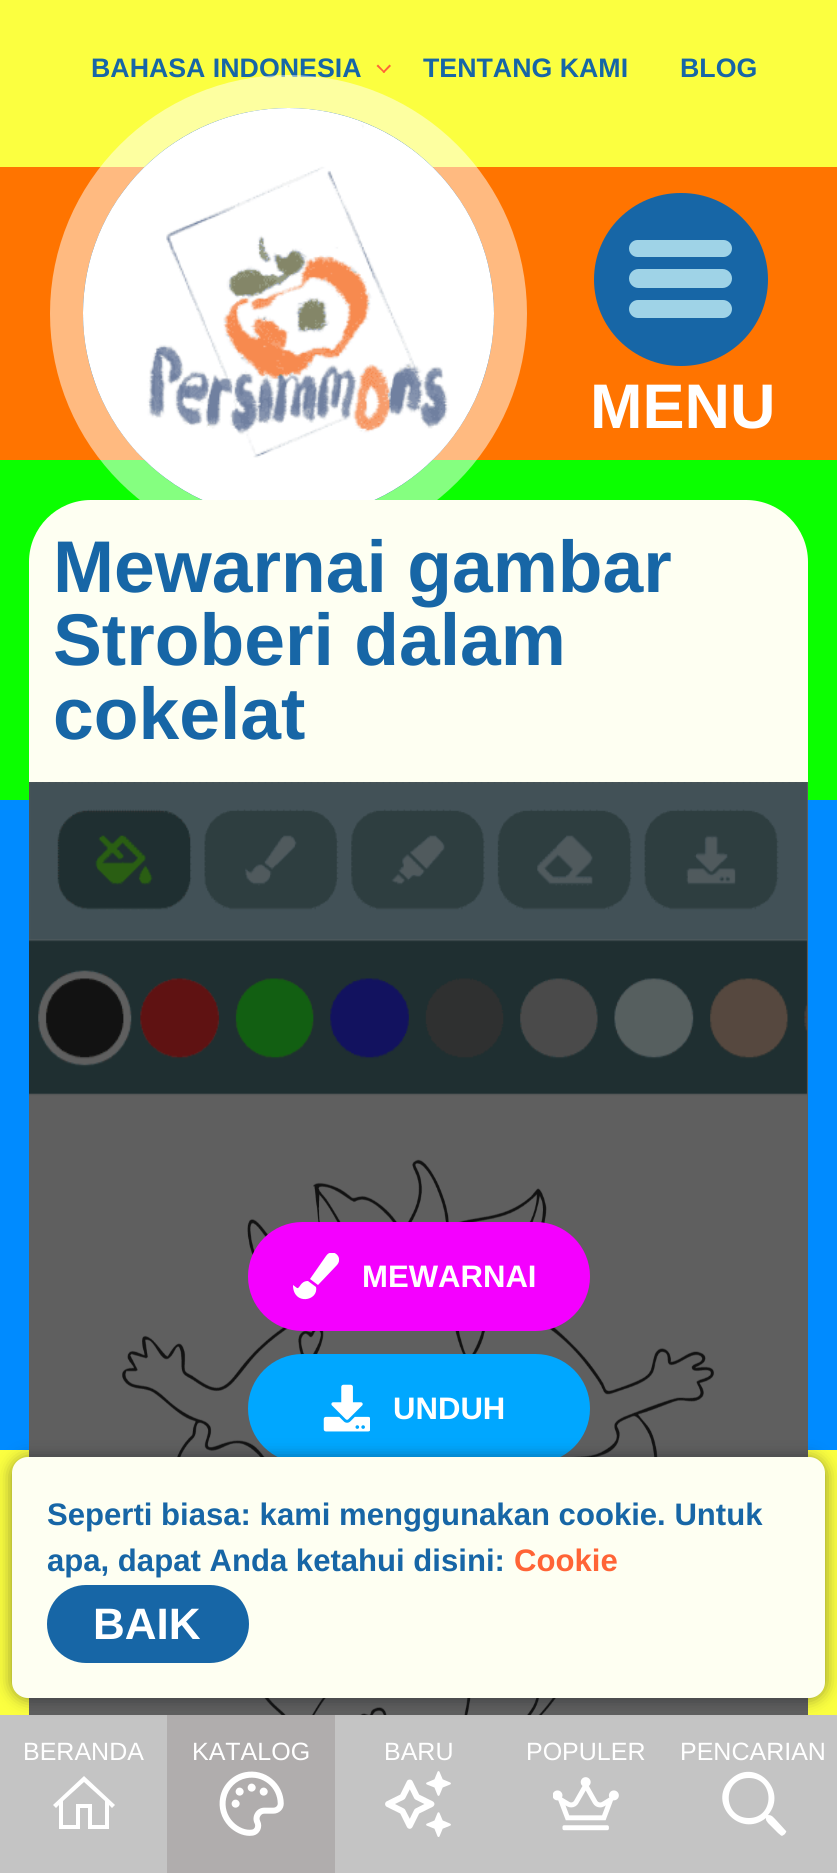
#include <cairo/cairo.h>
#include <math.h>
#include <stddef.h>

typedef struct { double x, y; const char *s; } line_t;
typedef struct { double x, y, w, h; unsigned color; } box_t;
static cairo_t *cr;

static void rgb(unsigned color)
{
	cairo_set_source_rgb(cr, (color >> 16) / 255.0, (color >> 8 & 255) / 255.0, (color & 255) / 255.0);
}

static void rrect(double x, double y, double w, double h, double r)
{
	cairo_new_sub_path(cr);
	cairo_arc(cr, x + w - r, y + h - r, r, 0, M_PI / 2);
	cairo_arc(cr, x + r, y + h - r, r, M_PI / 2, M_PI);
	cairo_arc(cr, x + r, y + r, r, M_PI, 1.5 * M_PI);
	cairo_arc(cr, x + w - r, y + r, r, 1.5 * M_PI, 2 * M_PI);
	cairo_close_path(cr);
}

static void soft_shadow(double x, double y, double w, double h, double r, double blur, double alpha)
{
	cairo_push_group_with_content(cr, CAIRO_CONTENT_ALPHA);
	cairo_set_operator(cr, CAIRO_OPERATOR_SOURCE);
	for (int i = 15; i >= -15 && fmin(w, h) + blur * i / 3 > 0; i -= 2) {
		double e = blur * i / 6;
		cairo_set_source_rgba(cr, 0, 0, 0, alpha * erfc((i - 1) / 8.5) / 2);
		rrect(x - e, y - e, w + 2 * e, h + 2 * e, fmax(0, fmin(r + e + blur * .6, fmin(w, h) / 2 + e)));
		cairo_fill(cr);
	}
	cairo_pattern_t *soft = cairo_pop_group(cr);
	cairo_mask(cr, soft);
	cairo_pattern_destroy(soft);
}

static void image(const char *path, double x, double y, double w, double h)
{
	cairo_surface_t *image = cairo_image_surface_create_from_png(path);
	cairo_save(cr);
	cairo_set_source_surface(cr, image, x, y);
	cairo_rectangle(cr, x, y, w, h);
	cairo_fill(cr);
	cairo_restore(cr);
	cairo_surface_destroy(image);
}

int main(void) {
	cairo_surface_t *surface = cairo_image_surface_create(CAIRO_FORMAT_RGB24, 837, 1873);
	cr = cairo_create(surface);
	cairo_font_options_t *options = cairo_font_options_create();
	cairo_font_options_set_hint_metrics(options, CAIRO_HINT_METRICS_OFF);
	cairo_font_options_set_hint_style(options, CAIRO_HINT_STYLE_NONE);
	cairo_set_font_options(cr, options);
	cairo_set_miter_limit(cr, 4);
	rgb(0x0bff00);
	cairo_paint(cr);
	{
		static const box_t items[] = {
			{0, 800, 837, 650, 0x008bff},
			{0, 1450, 837, 265, 0xfbff40},
			{0, 0, 837, 167, 0xfbff40},
		};
		for (size_t i = 0; i < sizeof items / sizeof *items; i++) {
			rgb(items[i].color);
			cairo_rectangle(cr, items[i].x, items[i].y, items[i].w, items[i].h);
			cairo_fill(cr);
		}
	}
	rgb(0xff6436);
	cairo_new_path(cr);
	cairo_move_to(cr, 389.5, 64.5);
	cairo_line_to(cr, 391, 66);
	cairo_line_to(cr, 384, 73);
	cairo_line_to(cr, 382.5, 72);
	cairo_close_path(cr);
	cairo_fill(cr);
	cairo_new_path(cr);
	cairo_move_to(cr, 378, 64.5);
	cairo_line_to(cr, 385, 72);
	cairo_line_to(cr, 384, 73);
	cairo_line_to(cr, 376.5, 66);
	cairo_close_path(cr);
	cairo_fill(cr);
	rgb(0xff7400);
	cairo_rectangle(cr, 0, 167, 837, 293);
	cairo_fill(cr);
	rgb(0x1766a6);
	cairo_arc(cr, 288.5, 313.5, 205.5, 0, 2 * M_PI);
	cairo_fill(cr);
	image("img/1.png", 83, 108, 411, 392);
	rrect(594, 193, 174, 173, 86.5);
	cairo_fill(cr);
	rgb(0x9fd3e7);
	rrect(629, 300, 103, 18, 9);
	cairo_fill(cr);
	rrect(629, 269, 103, 19, 9.5);
	cairo_fill(cr);
	rrect(629, 240, 103, 17, 8.5);
	cairo_fill(cr);
	cairo_select_font_face(cr, "Liberation Sans", CAIRO_FONT_SLANT_NORMAL, CAIRO_FONT_WEIGHT_BOLD);
	cairo_set_font_size(cr, 26.75);
	rgb(0x1766a6);
	{
		static const line_t items[] = {
			{91, 77, "BAHASA INDONESIA"},
			{423, 77, "TENTANG KAMI"},
			{680, 77, "BLOG"},
		};
		for (size_t i = 0; i < sizeof items / sizeof *items; i++) {
			cairo_move_to(cr, items[i].x, items[i].y);
			cairo_show_text(cr, items[i].s);
		}
	}
	cairo_new_path(cr);
	cairo_arc(cr, 288.5, 313.5, 222, 0, 2 * M_PI);
	cairo_set_source_rgba(cr, 1, 1, 1, 0.5);
	cairo_set_line_width(cr, 33);
	cairo_stroke(cr);
	cairo_set_font_size(cr, 63);
	rgb(0xffffff);
	cairo_move_to(cr, 590, 428);
	cairo_show_text(cr, "MENU");
	rgb(0xfefff2);
	rrect(29, 500, 779, 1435, 62);
	cairo_fill(cr);
	cairo_set_font_size(cr, 73.25);
	rgb(0x1766a6);
	{
		static const line_t items[] = {
			{53, 592, "Mewarnai gambar"},
			{53, 665, "Stroberi dalam"},
			{53, 739, "cokelat"},
		};
		for (size_t i = 0; i < sizeof items / sizeof *items; i++) {
			cairo_move_to(cr, items[i].x, items[i].y);
			cairo_show_text(cr, items[i].s);
		}
	}
	rgb(0x5f5f5f);
	cairo_rectangle(cr, 29, 782, 779, 933);
	cairo_fill(cr);
	image("img/2.png", 122, 1159, 593, 556);
	image("img/3.png", 29, 782, 779, 314);
	rgb(0xf400ff);
	rrect(248, 1222, 342, 109, 54.5);
	cairo_fill(cr);
	cairo_save(cr);
	cairo_rectangle(cr, 292, 1253, 47, 47);
	cairo_clip(cr);
	rgb(0xffffff);
	cairo_new_path(cr);
	cairo_move_to(cr, 326, 1256);
	cairo_line_to(cr, 310, 1279);
	cairo_line_to(cr, 318, 1285);
	cairo_line_to(cr, 337, 1265);
	cairo_curve_to(cr, 344, 1257, 332, 1247, 326, 1256);
	cairo_close_path(cr);
	cairo_move_to(cr, 308, 1281);
	cairo_curve_to(cr, 300, 1281, 300, 1289, 297, 1288);
	cairo_line_to(cr, 293, 1285);
	cairo_curve_to(cr, 293, 1306, 319, 1301, 316, 1287);
	cairo_close_path(cr);
	cairo_fill(cr);
	cairo_restore(cr);
	cairo_set_font_size(cr, 31.1);
	rgb(0xffffff);
	cairo_move_to(cr, 362, 1287);
	cairo_show_text(cr, "MEWARNAI");
	rgb(0x00a7ff);
	rrect(248, 1354, 342, 109, 54.5);
	cairo_fill(cr);
	image("img/4.png", 323, 1384, 47, 48);
	rgb(0xffffff);
	cairo_move_to(cr, 393, 1419);
	cairo_show_text(cr, "UNDUH");
	rgb(0xc4c4c4);
	cairo_rectangle(cr, 0, 1715, 837, 158);
	cairo_fill(cr);
	cairo_select_font_face(cr, "Liberation Sans", CAIRO_FONT_SLANT_NORMAL, CAIRO_FONT_WEIGHT_NORMAL);
	cairo_set_font_size(cr, 25);
	rgb(0xffffff);
	cairo_move_to(cr, 23, 1760);
	cairo_show_text(cr, "BERANDA");
	cairo_new_path(cr);
	cairo_move_to(cr, 84, 1776);
	cairo_line_to(cr, 53, 1805);
	cairo_line_to(cr, 56, 1808);
	cairo_line_to(cr, 59, 1805);
	cairo_line_to(cr, 59, 1829);
	cairo_line_to(cr, 80, 1829);
	cairo_line_to(cr, 80, 1808);
	cairo_line_to(cr, 88, 1808);
	cairo_line_to(cr, 88, 1829);
	cairo_line_to(cr, 109, 1829);
	cairo_line_to(cr, 109, 1805);
	cairo_line_to(cr, 112, 1808);
	cairo_line_to(cr, 115, 1805);
	cairo_close_path(cr);
	cairo_move_to(cr, 84, 1782);
	cairo_line_to(cr, 105, 1801);
	cairo_line_to(cr, 105, 1825);
	cairo_line_to(cr, 92, 1825);
	cairo_line_to(cr, 92, 1804);
	cairo_line_to(cr, 76, 1804);
	cairo_line_to(cr, 76, 1825);
	cairo_line_to(cr, 63, 1825);
	cairo_line_to(cr, 63, 1801);
	cairo_close_path(cr);
	cairo_fill(cr);
	rgb(0xb0adad);
	cairo_rectangle(cr, 167, 1715, 168, 158);
	cairo_fill(cr);
	rgb(0x15191e);
	soft_shadow(12, 1458, 813, 241, 16, 8, 0.5);
	rgb(0xfefff2);
	rrect(12, 1457, 813, 241, 16);
	cairo_fill(cr);
	rgb(0x1766a6);
	rrect(47, 1585, 202, 78, 39);
	cairo_fill(cr);
	cairo_select_font_face(cr, "Liberation Sans", CAIRO_FONT_SLANT_NORMAL, CAIRO_FONT_WEIGHT_BOLD);
	cairo_set_font_size(cr, 44);
	rgb(0xffffff);
	cairo_move_to(cr, 93, 1639);
	cairo_show_text(cr, "BAIK");
	cairo_set_font_size(cr, 31.1);
	rgb(0xff6436);
	cairo_move_to(cr, 514, 1571);
	cairo_show_text(cr, "Cookie");
	rgb(0x1766a6);
	cairo_move_to(cr, 47, 1571);
	cairo_show_text(cr, "apa, dapat Anda ketahui disini:");
	cairo_move_to(cr, 47, 1525);
	cairo_show_text(cr, "Seperti biasa: kami menggunakan cookie. Untuk");
	cairo_select_font_face(cr, "Liberation Sans", CAIRO_FONT_SLANT_NORMAL, CAIRO_FONT_WEIGHT_NORMAL);
	cairo_set_font_size(cr, 25);
	rgb(0xffffff);
	cairo_move_to(cr, 192, 1760);
	cairo_show_text(cr, "KATALOG");
	image("img/5.png", 219, 1771, 65, 65);
	cairo_move_to(cr, 384, 1760);
	cairo_show_text(cr, "BARU");
	image("img/6.png", 385, 1771, 66, 66);
	cairo_move_to(cr, 526, 1760);
	cairo_show_text(cr, "POPULER");
	image("img/7.png", 553, 1777, 66, 54);
	cairo_move_to(cr, 680, 1760);
	cairo_show_text(cr, "PENCARIAN");
	cairo_new_path(cr);
	cairo_move_to(cr, 786, 1831);
	cairo_line_to(cr, 776, 1820);
	cairo_curve_to(cr, 773, 1817, 772, 1815, 768, 1815);
	cairo_curve_to(cr, 789, 1790, 754, 1756, 730, 1780);
	cairo_curve_to(cr, 707, 1803, 740, 1839, 766, 1818);
	cairo_curve_to(cr, 766, 1821, 766, 1820, 768, 1823);
	cairo_line_to(cr, 778, 1833);
	cairo_curve_to(cr, 782, 1836, 781, 1837, 785, 1834);
	cairo_curve_to(cr, 785, 1833, 787, 1832, 786, 1831);
	cairo_close_path(cr);
	cairo_move_to(cr, 749, 1818);
	cairo_curve_to(cr, 722, 1818, 722, 1778, 749, 1778);
	cairo_curve_to(cr, 775, 1778, 775, 1818, 749, 1818);
	cairo_close_path(cr);
	cairo_fill(cr);
	cairo_surface_write_to_png(surface, "page.png");
	cairo_font_options_destroy(options);
	cairo_destroy(cr);
	cairo_surface_destroy(surface);
	return 0;
}
